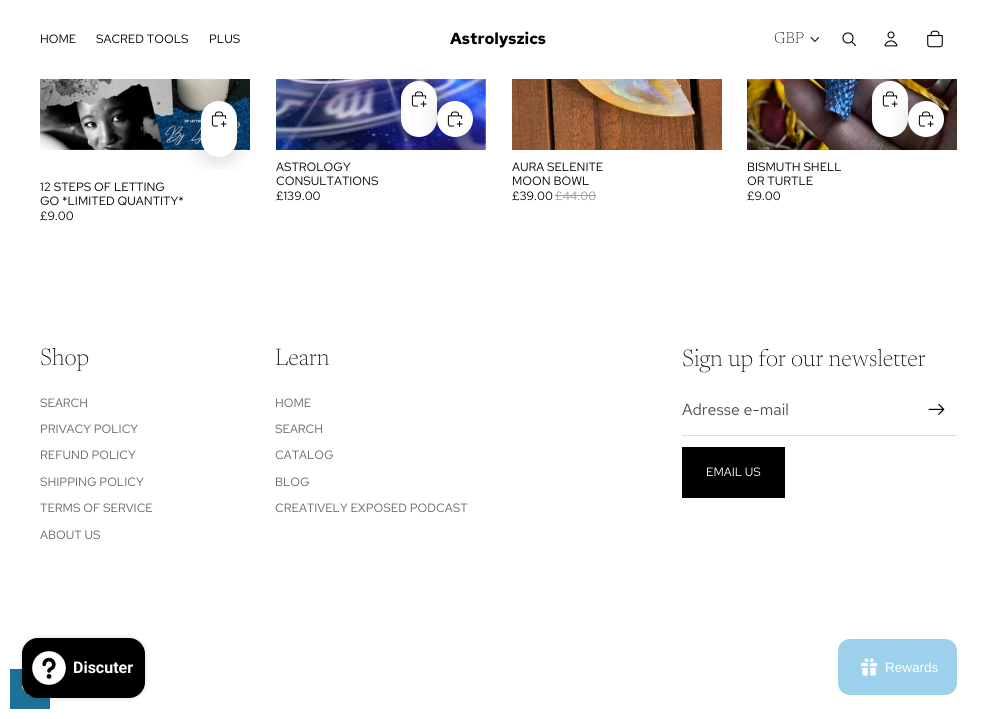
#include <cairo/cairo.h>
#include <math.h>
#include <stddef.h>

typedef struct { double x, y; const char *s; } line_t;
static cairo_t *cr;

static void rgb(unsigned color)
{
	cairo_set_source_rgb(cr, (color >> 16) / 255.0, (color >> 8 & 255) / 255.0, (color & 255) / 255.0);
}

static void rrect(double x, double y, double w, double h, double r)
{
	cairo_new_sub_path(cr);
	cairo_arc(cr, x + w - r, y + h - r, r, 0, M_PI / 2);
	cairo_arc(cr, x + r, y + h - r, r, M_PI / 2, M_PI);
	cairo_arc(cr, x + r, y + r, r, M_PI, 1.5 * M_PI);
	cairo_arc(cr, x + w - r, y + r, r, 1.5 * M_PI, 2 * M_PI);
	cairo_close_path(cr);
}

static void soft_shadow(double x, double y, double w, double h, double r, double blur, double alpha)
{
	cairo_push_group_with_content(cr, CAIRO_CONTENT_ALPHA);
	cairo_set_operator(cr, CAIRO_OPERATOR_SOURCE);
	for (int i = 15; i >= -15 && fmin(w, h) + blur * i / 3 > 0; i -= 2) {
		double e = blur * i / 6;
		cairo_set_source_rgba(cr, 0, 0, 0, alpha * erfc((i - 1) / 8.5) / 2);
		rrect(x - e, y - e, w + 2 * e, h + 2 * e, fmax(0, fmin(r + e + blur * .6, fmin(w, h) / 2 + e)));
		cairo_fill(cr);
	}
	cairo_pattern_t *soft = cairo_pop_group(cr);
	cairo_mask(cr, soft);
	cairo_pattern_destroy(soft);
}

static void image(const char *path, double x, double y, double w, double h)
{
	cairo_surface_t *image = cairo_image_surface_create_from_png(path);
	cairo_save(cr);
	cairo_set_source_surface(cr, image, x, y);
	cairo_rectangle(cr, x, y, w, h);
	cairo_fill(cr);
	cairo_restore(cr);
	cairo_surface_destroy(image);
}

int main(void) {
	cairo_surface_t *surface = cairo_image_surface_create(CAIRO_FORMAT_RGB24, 997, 719);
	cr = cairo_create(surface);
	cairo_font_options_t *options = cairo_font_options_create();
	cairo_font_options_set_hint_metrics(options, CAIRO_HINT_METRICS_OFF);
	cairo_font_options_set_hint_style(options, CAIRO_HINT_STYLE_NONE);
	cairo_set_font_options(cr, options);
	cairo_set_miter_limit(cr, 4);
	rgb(0xffffff);
	cairo_paint(cr);
	image("img/5.png", 276, 79, 210, 71);
	cairo_save(cr);
	cairo_rectangle(cr, 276, 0, 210, 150);
	cairo_clip(cr);
	rgb(0x000000);
	soft_shadow(401, 85, 36, 56, 18, 10, 0.15);
	cairo_restore(cr);
	rgb(0xffffff);
	rrect(401, 81, 36, 56, 18);
	cairo_fill(cr);
	image("img/3.png", 411, 91, 16, 17);
	cairo_save(cr);
	cairo_rectangle(cr, 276, 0, 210, 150);
	cairo_clip(cr);
	rgb(0x000000);
	soft_shadow(437, 105, 36, 36, 18, 10, 0.15);
	cairo_restore(cr);
	image("img/7.png", 747, 79, 210, 71);
	cairo_save(cr);
	cairo_rectangle(cr, 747, 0, 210, 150);
	cairo_clip(cr);
	rgb(0x000000);
	soft_shadow(872, 85, 36, 56, 18, 10, 0.15);
	cairo_restore(cr);
	rrect(872, 81, 36, 56, 18);
	cairo_fill(cr);
	image("img/3.png", 882, 91, 16, 17);
	cairo_save(cr);
	cairo_rectangle(cr, 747, 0, 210, 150);
	cairo_clip(cr);
	rgb(0x000000);
	soft_shadow(908, 105, 36, 36, 18, 10, 0.15);
	cairo_restore(cr);
	cairo_rectangle(cr, 400, 72, 509, 7);
	cairo_fill(cr);
	cairo_new_path(cr);
	cairo_move_to(cr, 818.5, 37.5);
	cairo_line_to(cr, 815, 41.5);
	cairo_line_to(cr, 811, 37.5);
	rgb(0x000000);
	cairo_set_line_width(cr, 1);
	cairo_set_line_cap(cr, CAIRO_LINE_CAP_ROUND);
	cairo_set_line_join(cr, CAIRO_LINE_JOIN_ROUND);
	cairo_stroke(cr);
	cairo_arc(cr, 848, 38, 5, 0, 2 * M_PI);
	cairo_set_line_width(cr, 1.1);
	cairo_set_line_cap(cr, CAIRO_LINE_CAP_BUTT);
	cairo_set_line_join(cr, CAIRO_LINE_JOIN_MITER);
	cairo_stroke(cr);
	cairo_new_path(cr);
	cairo_move_to(cr, 852, 42);
	cairo_line_to(cr, 855.5, 45.5);
	cairo_set_line_cap(cr, CAIRO_LINE_CAP_ROUND);
	cairo_set_line_join(cr, CAIRO_LINE_JOIN_ROUND);
	cairo_stroke(cr);
	image("img/1.png", 884, 31, 14, 16);
	image("img/2.png", 927, 30, 16, 18);
	image("img/4.png", 40, 79, 210, 71);
	cairo_save(cr);
	cairo_rectangle(cr, 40, 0, 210, 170);
	cairo_clip(cr);
	rgb(0x000000);
	soft_shadow(201, 105, 36, 56, 18, 10, 0.15);
	cairo_restore(cr);
	rgb(0xffffff);
	rrect(201, 101, 36, 56, 18);
	cairo_fill(cr);
	image("img/3.png", 211, 111, 16, 17);
	cairo_arc(cr, 455, 119, 18, 0, 2 * M_PI);
	cairo_fill(cr);
	image("img/3.png", 447, 111, 16, 17);
	image("img/6.png", 512, 79, 210, 71);
	rgb(0x999999);
	cairo_rectangle(cr, 555, 195, 41, 1);
	cairo_fill(cr);
	rgb(0xffffff);
	cairo_arc(cr, 926, 119, 18, 0, 2 * M_PI);
	cairo_fill(cr);
	image("img/3.png", 918, 111, 16, 17);
	rgb(0xdedede);
	cairo_rectangle(cr, 682, 435, 275, 1);
	cairo_fill(cr);
	image("img/8.png", 928, 403, 17, 12);
	rgb(0x000000);
	cairo_rectangle(cr, 682, 447, 103, 51);
	cairo_fill(cr);
	rgb(0x1c7197);
	cairo_rectangle(cr, 10, 669, 40, 40);
	cairo_fill(cr);
	image("img/11.png", 22, 683, 9, 13);
	rgb(0x000000);
	soft_shadow(22, 638, 123, 60, 16, 2.5, 0.15);
	rgb(0x000000);
	rrect(22, 638, 123, 60, 16);
	cairo_fill(cr);
	image("img/9.png", 32, 651, 34, 34);
	rgb(0x9dd0ea);
	rrect(838, 639, 119, 56, 12);
	cairo_fill(cr);
	image("img/10.png", 860, 658, 18, 18);
	cairo_select_font_face(cr, "Red Hat Text", CAIRO_FONT_SLANT_NORMAL, CAIRO_FONT_WEIGHT_NORMAL);
	cairo_set_font_size(cr, 12);
	rgb(0x000000);
	{
		static const line_t items[] = {
			{40, 43, "HOME"},
			{96, 43, "SACRED TOOLS"},
			{209, 43, "PLUS"},
		};
		for (size_t i = 0; i < sizeof items / sizeof *items; i++) {
			cairo_move_to(cr, items[i].x, items[i].y);
			cairo_show_text(cr, items[i].s);
		}
	}
	cairo_select_font_face(cr, "Red Hat Text", CAIRO_FONT_SLANT_NORMAL, CAIRO_FONT_WEIGHT_BOLD);
	cairo_set_font_size(cr, 16);
	cairo_move_to(cr, 450, 44);
	cairo_show_text(cr, "Astrolyszics");
	cairo_select_font_face(cr, "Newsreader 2 ExtraLight", CAIRO_FONT_SLANT_NORMAL, CAIRO_FONT_WEIGHT_NORMAL);
	cairo_move_to(cr, 774, 43);
	cairo_show_text(cr, "GBP");
	cairo_select_font_face(cr, "Red Hat Text", CAIRO_FONT_SLANT_NORMAL, CAIRO_FONT_WEIGHT_NORMAL);
	cairo_set_font_size(cr, 12);
	{
		static const line_t items[] = {
			{40, 191, "12 STEPS OF LETTING"},
			{40, 205, "GO *LIMITED QUANTITY*"},
			{40, 220, "£9.00"},
			{276, 171, "ASTROLOGY"},
			{276, 185, "CONSULTATIONS"},
			{276, 200, "£139.00"},
			{512, 171, "AURA SELENITE"},
			{512, 185, "MOON BOWL"},
			{512, 200, "£39.00"},
		};
		for (size_t i = 0; i < sizeof items / sizeof *items; i++) {
			cairo_move_to(cr, items[i].x, items[i].y);
			cairo_show_text(cr, items[i].s);
		}
	}
	rgb(0x999999);
	cairo_move_to(cr, 555, 200);
	cairo_show_text(cr, "£44.00");
	rgb(0x000000);
	{
		static const line_t items[] = {
			{747, 171, "BISMUTH SHELL"},
			{747, 185, "OR TURTLE"},
			{747, 200, "£9.00"},
		};
		for (size_t i = 0; i < sizeof items / sizeof *items; i++) {
			cairo_move_to(cr, items[i].x, items[i].y);
			cairo_show_text(cr, items[i].s);
		}
	}
	cairo_select_font_face(cr, "Newsreader ExtraLight", CAIRO_FONT_SLANT_NORMAL, CAIRO_FONT_WEIGHT_NORMAL);
	cairo_set_font_size(cr, 24);
	cairo_move_to(cr, 40, 365);
	cairo_show_text(cr, "Shop");
	cairo_select_font_face(cr, "Red Hat Text", CAIRO_FONT_SLANT_NORMAL, CAIRO_FONT_WEIGHT_NORMAL);
	cairo_set_font_size(cr, 12);
	rgb(0x666666);
	{
		static const line_t items[] = {
			{40, 407, "SEARCH"},
			{40, 433, "PRIVACY POLICY"},
			{40, 459, "REFUND POLICY"},
			{40, 486, "SHIPPING POLICY"},
			{40, 512, "TERMS OF SERVICE"},
			{40, 539, "ABOUT US"},
		};
		for (size_t i = 0; i < sizeof items / sizeof *items; i++) {
			cairo_move_to(cr, items[i].x, items[i].y);
			cairo_show_text(cr, items[i].s);
		}
	}
	cairo_select_font_face(cr, "Newsreader ExtraLight", CAIRO_FONT_SLANT_NORMAL, CAIRO_FONT_WEIGHT_NORMAL);
	cairo_set_font_size(cr, 24);
	rgb(0x000000);
	cairo_move_to(cr, 275, 365);
	cairo_show_text(cr, "Learn");
	cairo_select_font_face(cr, "Red Hat Text", CAIRO_FONT_SLANT_NORMAL, CAIRO_FONT_WEIGHT_NORMAL);
	cairo_set_font_size(cr, 12);
	rgb(0x666666);
	{
		static const line_t items[] = {
			{275, 407, "HOME"},
			{275, 433, "SEARCH"},
			{275, 459, "CATALOG"},
			{275, 486, "BLOG"},
			{275, 512, "CREATIVELY EXPOSED PODCAST"},
		};
		for (size_t i = 0; i < sizeof items / sizeof *items; i++) {
			cairo_move_to(cr, items[i].x, items[i].y);
			cairo_show_text(cr, items[i].s);
		}
	}
	cairo_select_font_face(cr, "Newsreader ExtraLight", CAIRO_FONT_SLANT_NORMAL, CAIRO_FONT_WEIGHT_NORMAL);
	cairo_set_font_size(cr, 24);
	rgb(0x000000);
	cairo_move_to(cr, 682, 366);
	cairo_show_text(cr, "Sign up for our newsletter");
	cairo_select_font_face(cr, "Red Hat Text", CAIRO_FONT_SLANT_NORMAL, CAIRO_FONT_WEIGHT_NORMAL);
	cairo_set_font_size(cr, 16);
	rgb(0x4d4d4d);
	cairo_move_to(cr, 682, 415);
	cairo_show_text(cr, "Adresse e-mail");
	cairo_set_font_size(cr, 12);
	rgb(0xffffff);
	cairo_move_to(cr, 706, 476);
	cairo_show_text(cr, "EMAIL US");
	cairo_select_font_face(cr, "Roboto", CAIRO_FONT_SLANT_NORMAL, CAIRO_FONT_WEIGHT_BOLD);
	cairo_set_font_size(cr, 16);
	cairo_move_to(cr, 73, 673);
	cairo_show_text(cr, "Discuter");
	cairo_select_font_face(cr, "Liberation Sans", CAIRO_FONT_SLANT_NORMAL, CAIRO_FONT_WEIGHT_NORMAL);
	cairo_set_font_size(cr, 13.5);
	cairo_move_to(cr, 885, 672);
	cairo_show_text(cr, "Rewards");
	cairo_surface_write_to_png(surface, "page.png");
	cairo_font_options_destroy(options);
	cairo_destroy(cr);
	cairo_surface_destroy(surface);
	return 0;
}
